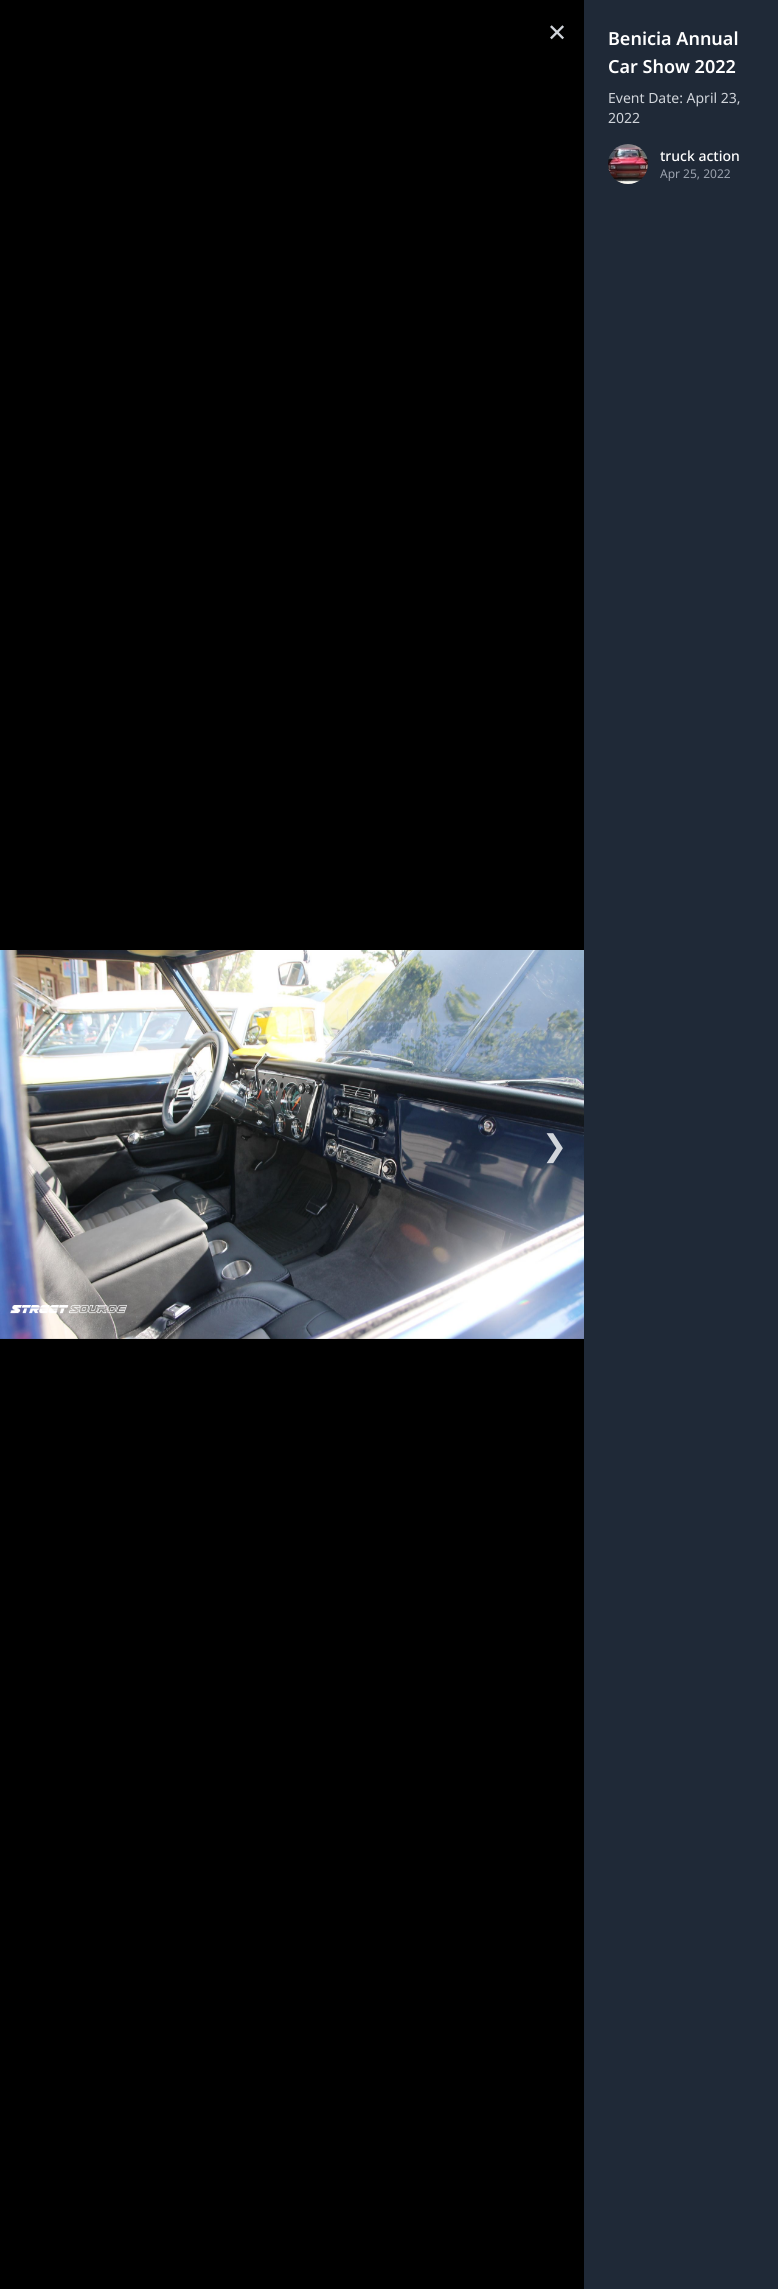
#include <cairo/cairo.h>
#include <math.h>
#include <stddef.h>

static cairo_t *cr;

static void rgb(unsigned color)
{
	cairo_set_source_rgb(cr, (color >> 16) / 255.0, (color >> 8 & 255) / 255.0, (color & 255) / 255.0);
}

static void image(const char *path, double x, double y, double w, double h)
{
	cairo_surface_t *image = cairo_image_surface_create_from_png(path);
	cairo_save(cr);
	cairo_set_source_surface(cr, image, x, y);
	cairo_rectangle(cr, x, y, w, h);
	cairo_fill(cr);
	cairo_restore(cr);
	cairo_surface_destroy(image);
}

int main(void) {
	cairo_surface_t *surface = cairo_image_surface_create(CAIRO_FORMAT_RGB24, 778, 2289);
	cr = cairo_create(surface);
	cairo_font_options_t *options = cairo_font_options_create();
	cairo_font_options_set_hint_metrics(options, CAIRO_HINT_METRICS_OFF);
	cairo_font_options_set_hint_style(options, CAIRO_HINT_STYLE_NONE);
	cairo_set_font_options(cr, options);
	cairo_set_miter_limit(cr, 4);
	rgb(0x1f2937);
	cairo_paint(cr);
	rgb(0x000000);
	cairo_rectangle(cr, 0, 0, 584, 2289);
	cairo_fill(cr);
	image("img/1.png", 0, 950, 584, 389);
	image("img/2.png", 10, 1305, 117, 9);
	image("img/3.png", 608, 144, 40, 40);
	cairo_select_font_face(cr, "DejaVu Sans", CAIRO_FONT_SLANT_NORMAL, CAIRO_FONT_WEIGHT_NORMAL);
	cairo_set_font_size(cr, 24);
	rgb(0xd1d5db);
	cairo_move_to(cr, 547, 41);
	cairo_show_text(cr, "✕");
	cairo_set_font_size(cr, 30);
	cairo_move_to(cr, 542, 1156);
	cairo_show_text(cr, "❯");
	cairo_select_font_face(cr, "Noto Sans SemiBold", CAIRO_FONT_SLANT_NORMAL, CAIRO_FONT_WEIGHT_NORMAL);
	cairo_set_font_size(cr, 18);
	rgb(0xffffff);
	cairo_move_to(cr, 608, 45);
	cairo_show_text(cr, "Benicia Annual");
	cairo_move_to(cr, 608, 73);
	cairo_show_text(cr, "Car Show 2022");
	cairo_select_font_face(cr, "Noto Sans", CAIRO_FONT_SLANT_NORMAL, CAIRO_FONT_WEIGHT_NORMAL);
	cairo_set_font_size(cr, 14);
	rgb(0xd1d5db);
	cairo_move_to(cr, 608, 103);
	cairo_show_text(cr, "Event Date: April 23,");
	cairo_move_to(cr, 608, 123);
	cairo_show_text(cr, "2022");
	cairo_select_font_face(cr, "Noto Sans Medium", CAIRO_FONT_SLANT_NORMAL, CAIRO_FONT_WEIGHT_NORMAL);
	rgb(0xffffff);
	cairo_move_to(cr, 660, 161);
	cairo_show_text(cr, "truck action");
	cairo_select_font_face(cr, "Noto Sans", CAIRO_FONT_SLANT_NORMAL, CAIRO_FONT_WEIGHT_NORMAL);
	cairo_set_font_size(cr, 12);
	rgb(0x9ca3af);
	cairo_move_to(cr, 660, 178);
	cairo_show_text(cr, "Apr 25, 2022");
	cairo_surface_write_to_png(surface, "page.png");
	cairo_font_options_destroy(options);
	cairo_destroy(cr);
	cairo_surface_destroy(surface);
	return 0;
}
